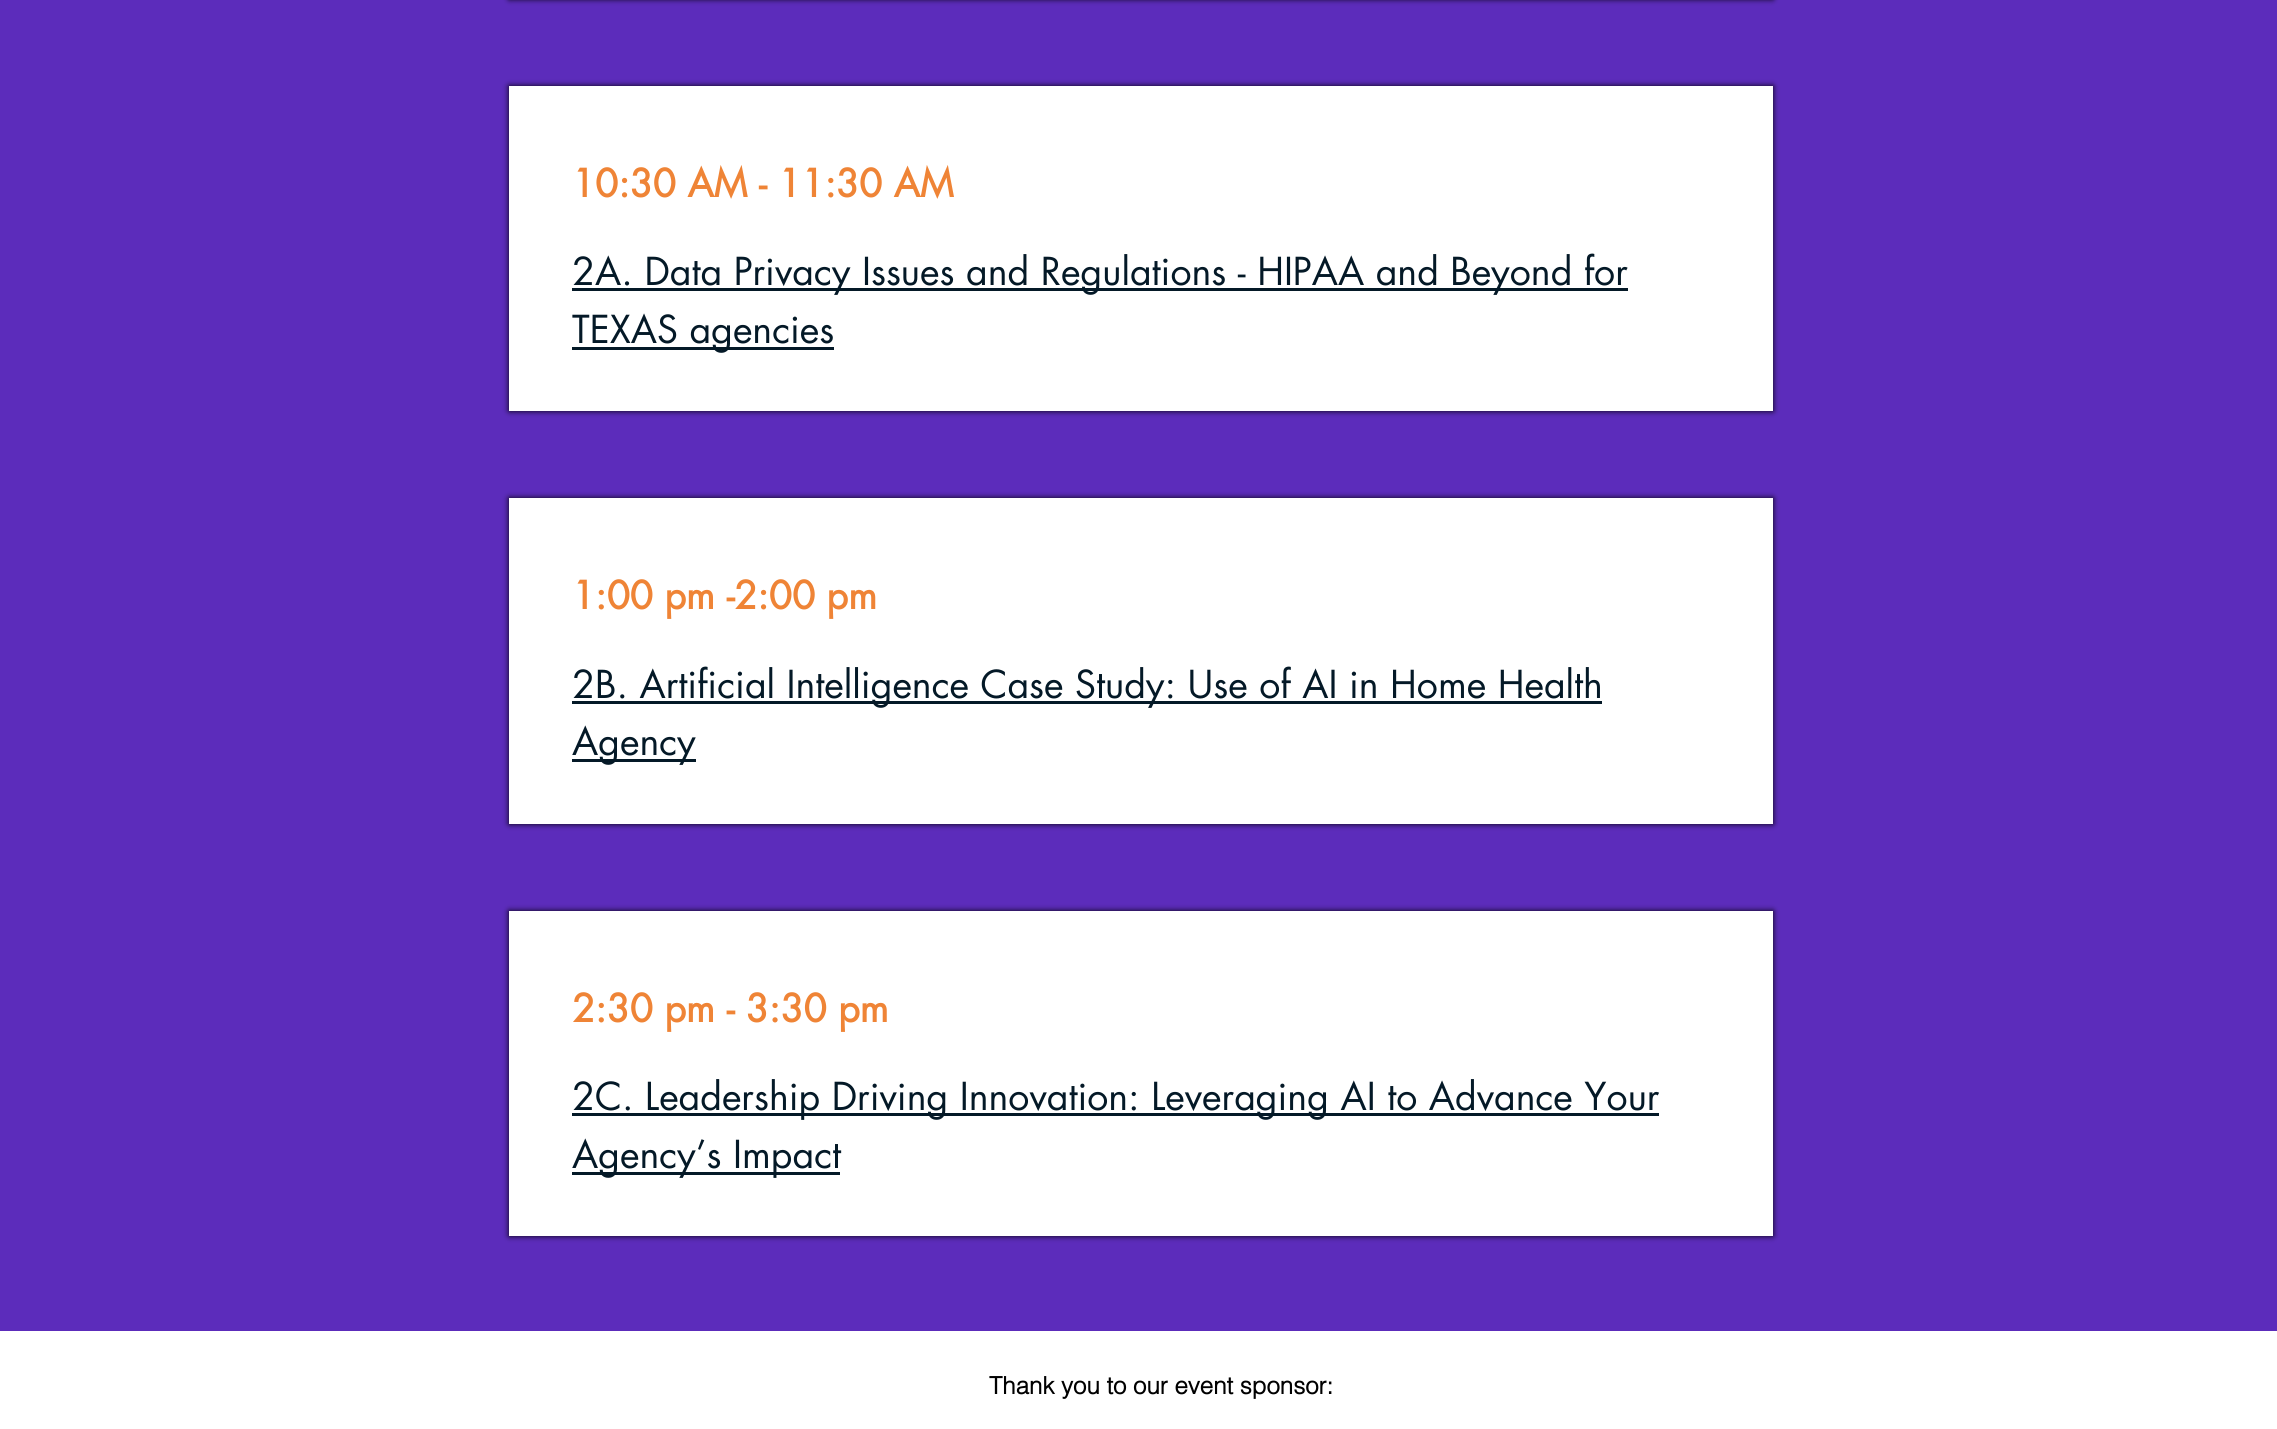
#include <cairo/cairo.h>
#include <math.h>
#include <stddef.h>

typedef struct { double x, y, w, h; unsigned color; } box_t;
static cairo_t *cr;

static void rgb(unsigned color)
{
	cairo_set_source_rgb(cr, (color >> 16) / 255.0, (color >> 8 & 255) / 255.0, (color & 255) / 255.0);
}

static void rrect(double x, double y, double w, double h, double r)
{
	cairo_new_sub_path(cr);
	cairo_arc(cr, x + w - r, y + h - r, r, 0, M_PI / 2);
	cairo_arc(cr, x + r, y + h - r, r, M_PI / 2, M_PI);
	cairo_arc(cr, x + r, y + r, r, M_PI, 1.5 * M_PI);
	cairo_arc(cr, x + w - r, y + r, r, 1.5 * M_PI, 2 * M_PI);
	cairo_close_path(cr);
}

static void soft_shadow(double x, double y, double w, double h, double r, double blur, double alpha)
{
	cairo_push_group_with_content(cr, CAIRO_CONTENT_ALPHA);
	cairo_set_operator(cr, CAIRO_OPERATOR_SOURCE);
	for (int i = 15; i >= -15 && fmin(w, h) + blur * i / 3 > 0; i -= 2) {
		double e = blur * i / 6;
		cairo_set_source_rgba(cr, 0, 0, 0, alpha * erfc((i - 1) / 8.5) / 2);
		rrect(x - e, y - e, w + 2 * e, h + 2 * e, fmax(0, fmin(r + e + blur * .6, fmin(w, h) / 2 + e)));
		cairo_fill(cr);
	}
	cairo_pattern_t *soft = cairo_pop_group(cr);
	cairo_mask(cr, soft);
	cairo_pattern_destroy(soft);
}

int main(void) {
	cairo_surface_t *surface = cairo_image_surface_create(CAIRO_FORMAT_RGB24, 2277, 1429);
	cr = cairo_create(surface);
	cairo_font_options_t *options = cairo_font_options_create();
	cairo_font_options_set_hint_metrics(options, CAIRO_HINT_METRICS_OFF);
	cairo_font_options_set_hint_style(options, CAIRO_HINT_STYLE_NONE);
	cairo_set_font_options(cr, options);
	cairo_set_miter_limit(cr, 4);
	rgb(0x5c2cbb);
	cairo_paint(cr);
	rgb(0x000000);
	soft_shadow(509, -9, 1264, 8, 0, 3, 1);
	soft_shadow(509, 86, 1264, 325, 0, 3, 1);
	{
		static const box_t items[] = {
			{509, 86, 1264, 325, 0xffffff},
			{572, 288, 1056, 3, 0x041927},
			{572, 347, 262, 3, 0x041927},
		};
		for (size_t i = 0; i < sizeof items / sizeof *items; i++) {
			rgb(items[i].color);
			cairo_rectangle(cr, items[i].x, items[i].y, items[i].w, items[i].h);
			cairo_fill(cr);
		}
	}
	rgb(0x000000);
	soft_shadow(509, 498, 1264, 326, 0, 3, 1);
	{
		static const box_t items[] = {
			{509, 498, 1264, 326, 0xffffff},
			{572, 701, 1030, 3, 0x041927},
			{572, 759, 124, 3, 0x041927},
		};
		for (size_t i = 0; i < sizeof items / sizeof *items; i++) {
			rgb(items[i].color);
			cairo_rectangle(cr, items[i].x, items[i].y, items[i].w, items[i].h);
			cairo_fill(cr);
		}
	}
	rgb(0x000000);
	soft_shadow(509, 911, 1264, 325, 0, 3, 1);
	{
		static const box_t items[] = {
			{509, 911, 1264, 325, 0xffffff},
			{572, 1113, 1087, 3, 0x041927},
			{572, 1172, 268, 3, 0x041927},
			{0, 1331, 2277, 98, 0xffffff},
		};
		for (size_t i = 0; i < sizeof items / sizeof *items; i++) {
			rgb(items[i].color);
			cairo_rectangle(cr, items[i].x, items[i].y, items[i].w, items[i].h);
			cairo_fill(cr);
		}
	}
	cairo_select_font_face(cr, "futura", CAIRO_FONT_SLANT_NORMAL, CAIRO_FONT_WEIGHT_BOLD);
	cairo_set_font_size(cr, 37.5);
	rgb(0xef8436);
	cairo_move_to(cr, 572, 197);
	cairo_show_text(cr, "10:30 AM - 11:30 AM");
	cairo_select_font_face(cr, "futura", CAIRO_FONT_SLANT_NORMAL, CAIRO_FONT_WEIGHT_NORMAL);
	rgb(0x041927);
	cairo_move_to(cr, 572, 285);
	cairo_show_text(cr, "2A. Data Privacy Issues and Regulations - HIPAA and Beyond for");
	cairo_move_to(cr, 572, 343);
	cairo_show_text(cr, "TEXAS agencies");
	cairo_select_font_face(cr, "futura", CAIRO_FONT_SLANT_NORMAL, CAIRO_FONT_WEIGHT_BOLD);
	rgb(0xef8436);
	cairo_move_to(cr, 572, 609);
	cairo_show_text(cr, "1:00 pm -2:00 pm");
	cairo_select_font_face(cr, "futura", CAIRO_FONT_SLANT_NORMAL, CAIRO_FONT_WEIGHT_NORMAL);
	rgb(0x041927);
	cairo_move_to(cr, 572, 698);
	cairo_show_text(cr, "2B. Artificial Intelligence Case Study: Use of AI in Home Health");
	cairo_move_to(cr, 572, 755);
	cairo_show_text(cr, "Agency");
	cairo_select_font_face(cr, "futura", CAIRO_FONT_SLANT_NORMAL, CAIRO_FONT_WEIGHT_BOLD);
	rgb(0xef8436);
	cairo_move_to(cr, 572, 1022);
	cairo_show_text(cr, "2:30 pm - 3:30 pm");
	cairo_select_font_face(cr, "futura", CAIRO_FONT_SLANT_NORMAL, CAIRO_FONT_WEIGHT_NORMAL);
	rgb(0x041927);
	cairo_move_to(cr, 572, 1110);
	cairo_show_text(cr, "2C. Leadership Driving Innovation: Leveraging AI to Advance Your");
	cairo_move_to(cr, 572, 1168);
	cairo_show_text(cr, "Agency’s Impact");
	cairo_select_font_face(cr, "helvetica", CAIRO_FONT_SLANT_NORMAL, CAIRO_FONT_WEIGHT_BOLD);
	cairo_set_font_size(cr, 24);
	rgb(0x000000);
	cairo_move_to(cr, 989, 1394);
	cairo_show_text(cr, "Thank you to our event sponsor:");
	cairo_surface_write_to_png(surface, "page.png");
	cairo_font_options_destroy(options);
	cairo_destroy(cr);
	cairo_surface_destroy(surface);
	return 0;
}
